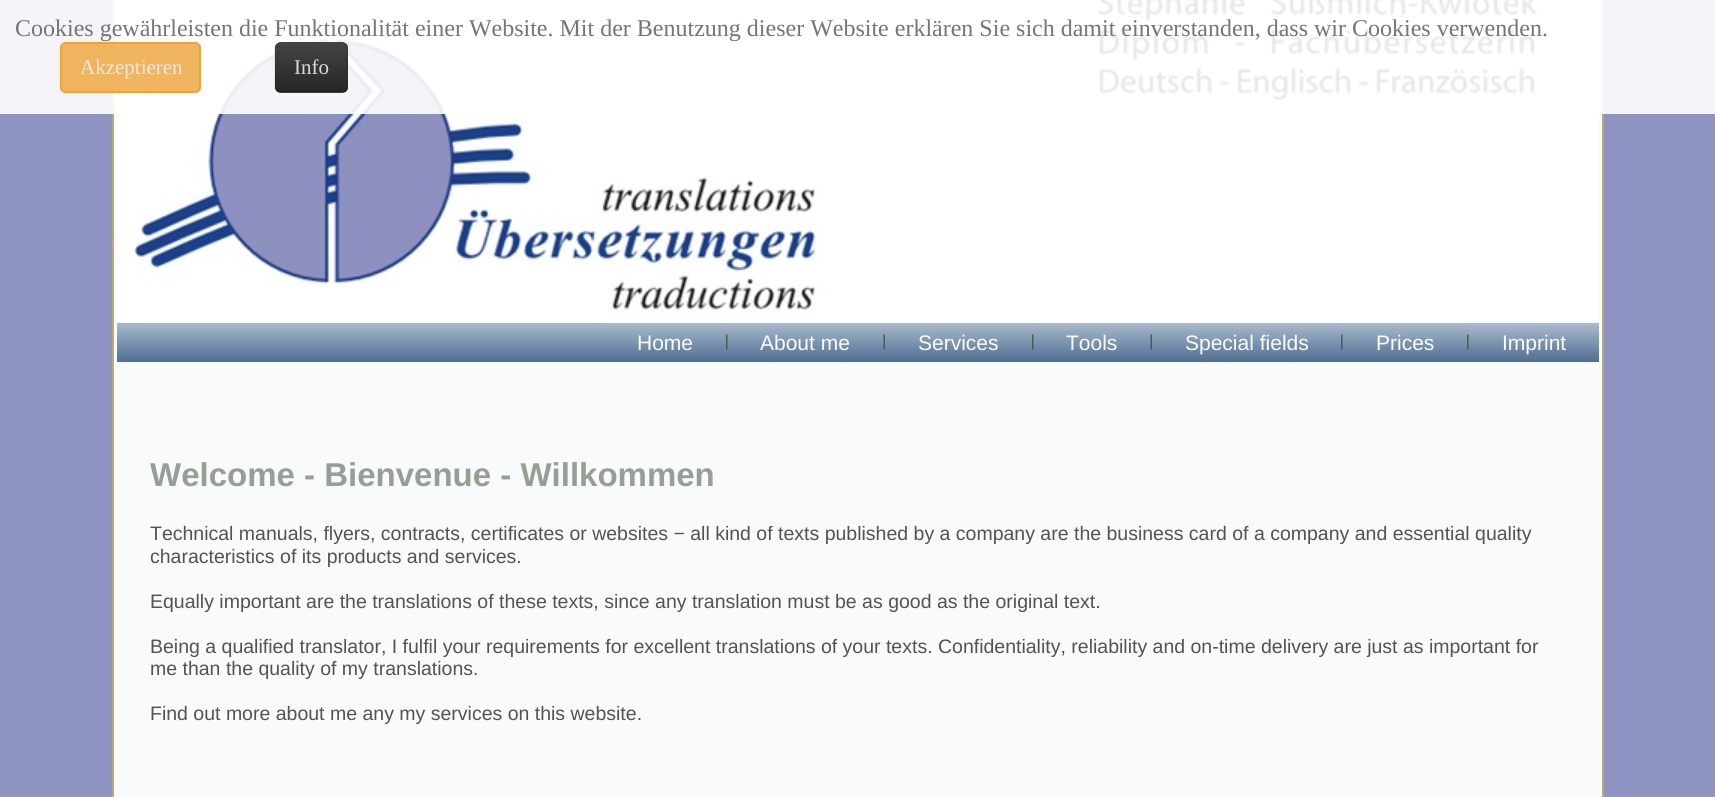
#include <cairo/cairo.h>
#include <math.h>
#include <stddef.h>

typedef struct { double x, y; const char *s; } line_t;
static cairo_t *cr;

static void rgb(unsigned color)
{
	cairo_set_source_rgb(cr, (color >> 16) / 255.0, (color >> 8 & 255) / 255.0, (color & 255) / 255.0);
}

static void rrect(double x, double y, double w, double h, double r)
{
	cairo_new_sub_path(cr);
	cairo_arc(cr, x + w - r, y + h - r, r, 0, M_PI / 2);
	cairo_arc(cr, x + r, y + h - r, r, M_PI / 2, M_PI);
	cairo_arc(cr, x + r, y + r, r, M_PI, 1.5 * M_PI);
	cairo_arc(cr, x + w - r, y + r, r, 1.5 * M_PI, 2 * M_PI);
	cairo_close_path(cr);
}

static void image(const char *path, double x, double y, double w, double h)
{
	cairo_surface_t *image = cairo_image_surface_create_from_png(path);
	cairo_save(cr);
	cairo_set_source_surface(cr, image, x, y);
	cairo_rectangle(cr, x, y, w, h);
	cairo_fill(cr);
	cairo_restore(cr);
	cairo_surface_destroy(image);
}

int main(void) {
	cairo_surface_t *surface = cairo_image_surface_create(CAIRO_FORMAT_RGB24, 1715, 797);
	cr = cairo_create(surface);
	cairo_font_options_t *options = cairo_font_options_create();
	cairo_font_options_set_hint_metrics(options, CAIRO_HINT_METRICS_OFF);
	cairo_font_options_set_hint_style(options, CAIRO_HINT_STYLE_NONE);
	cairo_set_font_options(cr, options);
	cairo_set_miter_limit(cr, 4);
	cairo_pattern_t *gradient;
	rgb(0x8e93c2);
	cairo_paint(cr);
	rgb(0xf9fafb);
	cairo_rectangle(cr, 114, 0, 1488, 797);
	cairo_fill(cr);
	rgb(0xb7a971);
	cairo_set_fill_rule(cr, CAIRO_FILL_RULE_EVEN_ODD);
	cairo_new_path(cr);
	cairo_move_to(cr, 128, -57);
	cairo_line_to(cr, 1588, -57);
	cairo_curve_to(cr, 1597, -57, 1604, -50, 1604, -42);
	cairo_line_to(cr, 1604, 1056);
	cairo_line_to(cr, 112, 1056);
	cairo_line_to(cr, 112, -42);
	cairo_curve_to(cr, 112, -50, 119, -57, 128, -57);
	cairo_close_path(cr);
	cairo_move_to(cr, 128, -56);
	cairo_line_to(cr, 1588, -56);
	cairo_curve_to(cr, 1596, -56, 1602, -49, 1602, -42);
	cairo_line_to(cr, 1602, 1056);
	cairo_line_to(cr, 114, 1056);
	cairo_line_to(cr, 114, -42);
	cairo_curve_to(cr, 114, -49, 120, -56, 128, -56);
	cairo_close_path(cr);
	cairo_fill(cr);
	image("img/1.png", 117, 0, 1482, 322);
	cairo_set_source_rgba(cr, 1, 1, 1, 0.9);
	cairo_rectangle(cr, 0, 0, 1715, 114);
	cairo_fill(cr);
	cairo_set_source_rgba(cr, 0.941, 0.678, 0.306, 0.9);
	rrect(60, 42, 141, 51, 6);
	cairo_fill(cr);
	rrect(61, 43, 139, 49, 5);
	cairo_set_source_rgba(cr, 0.933, 0.635, 0.212, 0.9);
	cairo_stroke(cr);
	cairo_set_source_rgba(cr, 0.212, 0.212, 0.212, 0.9);
	rrect(275, 42, 73, 51, 6);
	cairo_fill(cr);
	cairo_save(cr);
	cairo_set_fill_rule(cr, CAIRO_FILL_RULE_WINDING);
	rrect(275, 42, 73, 51, 6);
	cairo_clip(cr);
	gradient = cairo_pattern_create_linear(311, 43, 311, 92);
	cairo_pattern_add_color_stop_rgba(gradient, 0, 0.267, 0.267, 0.267, 0.9);
	cairo_pattern_add_color_stop_rgba(gradient, 1, 0.133, 0.133, 0.133, 0.9);
	cairo_set_source(cr, gradient);
	cairo_pattern_destroy(gradient);
	cairo_rectangle(cr, 275, 44, 73, 48);
	cairo_fill(cr);
	cairo_restore(cr);
	cairo_new_path(cr);
	cairo_move_to(cr, 345.5, 90.5);
	cairo_curve_to(cr, 344.5, 91.5, 343.5, 92, 342, 92);
	cairo_line_to(cr, 280.5, 92);
	cairo_curve_to(cr, 279, 92, 278, 91.5, 277, 90.5);
	cairo_set_source_rgba(cr, 0, 0, 0, 0.23);
	cairo_set_line_width(cr, 1.5);
	cairo_stroke(cr);
	cairo_new_path(cr);
	cairo_move_to(cr, 277, 90.5);
	cairo_curve_to(cr, 276, 89.5, 275, 88.5, 275, 87);
	cairo_line_to(cr, 275, 48);
	cairo_curve_to(cr, 275, 46.5, 276, 45.5, 277, 44.5);
	cairo_curve_to(cr, 278, 43.5, 279, 43, 280.5, 43);
	cairo_line_to(cr, 342, 43);
	cairo_curve_to(cr, 343.5, 43, 344.5, 43.5, 345.5, 44.5);
	cairo_curve_to(cr, 346.5, 45.5, 347, 46.5, 347, 48);
	cairo_line_to(cr, 347, 87);
	cairo_curve_to(cr, 347, 88.5, 346.5, 89.5, 345.5, 90.5);
	cairo_set_source_rgba(cr, 0, 0, 0, 0.09);
	cairo_stroke(cr);
	gradient = cairo_pattern_create_linear(858, 322, 858, 362);
	cairo_pattern_add_color_stop_rgba(gradient, 0, 0.675, 0.737, 0.804, 1);
	cairo_pattern_add_color_stop_rgba(gradient, 0.8, 0.376, 0.494, 0.624, 1);
	cairo_pattern_add_color_stop_rgba(gradient, 1, 0.329, 0.435, 0.549, 1);
	cairo_set_source(cr, gradient);
	cairo_pattern_destroy(gradient);
	cairo_rectangle(cr, 117, 323, 1352, 39);
	cairo_fill(cr);
	gradient = cairo_pattern_create_linear(665, 323, 665, 362);
	cairo_pattern_add_color_stop_rgba(gradient, 0, 0.675, 0.737, 0.804, 1);
	cairo_pattern_add_color_stop_rgba(gradient, 0.8, 0.376, 0.494, 0.624, 1);
	cairo_pattern_add_color_stop_rgba(gradient, 1, 0.329, 0.435, 0.549, 1);
	cairo_set_source(cr, gradient);
	cairo_pattern_destroy(gradient);
	cairo_rectangle(cr, 605, 323, 121, 1);
	cairo_fill(cr);
	image("img/2.png", 726, 334, 2, 16);
	gradient = cairo_pattern_create_linear(806, 323, 806, 362);
	cairo_pattern_add_color_stop_rgba(gradient, 0, 0.675, 0.737, 0.804, 1);
	cairo_pattern_add_color_stop_rgba(gradient, 0.8, 0.376, 0.494, 0.624, 1);
	cairo_pattern_add_color_stop_rgba(gradient, 1, 0.329, 0.435, 0.549, 1);
	cairo_set_source(cr, gradient);
	cairo_pattern_destroy(gradient);
	cairo_rectangle(cr, 728, 323, 156, 1);
	cairo_fill(cr);
	image("img/3.png", 883, 334, 2, 16);
	gradient = cairo_pattern_create_linear(959, 323, 959, 362);
	cairo_pattern_add_color_stop_rgba(gradient, 0, 0.675, 0.737, 0.804, 1);
	cairo_pattern_add_color_stop_rgba(gradient, 0.8, 0.376, 0.494, 0.624, 1);
	cairo_pattern_add_color_stop_rgba(gradient, 1, 0.329, 0.435, 0.549, 1);
	cairo_set_source(cr, gradient);
	cairo_pattern_destroy(gradient);
	cairo_rectangle(cr, 885, 323, 147, 1);
	cairo_fill(cr);
	image("img/2.png", 1032, 334, 2, 16);
	gradient = cairo_pattern_create_linear(1092, 323, 1092, 362);
	cairo_pattern_add_color_stop_rgba(gradient, 0, 0.675, 0.737, 0.804, 1);
	cairo_pattern_add_color_stop_rgba(gradient, 0.8, 0.376, 0.494, 0.624, 1);
	cairo_pattern_add_color_stop_rgba(gradient, 1, 0.329, 0.435, 0.549, 1);
	cairo_set_source(cr, gradient);
	cairo_pattern_destroy(gradient);
	cairo_rectangle(cr, 1034, 323, 117, 1);
	cairo_fill(cr);
	image("img/3.png", 1150, 334, 2, 16);
	gradient = cairo_pattern_create_linear(1247, 323, 1247, 362);
	cairo_pattern_add_color_stop_rgba(gradient, 0, 0.675, 0.737, 0.804, 1);
	cairo_pattern_add_color_stop_rgba(gradient, 0.8, 0.376, 0.494, 0.624, 1);
	cairo_pattern_add_color_stop_rgba(gradient, 1, 0.329, 0.435, 0.549, 1);
	cairo_set_source(cr, gradient);
	cairo_pattern_destroy(gradient);
	cairo_rectangle(cr, 1152, 323, 189, 1);
	cairo_fill(cr);
	image("img/2.png", 1341, 334, 2, 16);
	gradient = cairo_pattern_create_linear(1405, 323, 1405, 362);
	cairo_pattern_add_color_stop_rgba(gradient, 0, 0.675, 0.737, 0.804, 1);
	cairo_pattern_add_color_stop_rgba(gradient, 0.8, 0.376, 0.494, 0.624, 1);
	cairo_pattern_add_color_stop_rgba(gradient, 1, 0.329, 0.435, 0.549, 1);
	cairo_set_source(cr, gradient);
	cairo_pattern_destroy(gradient);
	cairo_rectangle(cr, 1343, 323, 124, 1);
	cairo_fill(cr);
	image("img/2.png", 1467, 334, 2, 16);
	gradient = cairo_pattern_create_linear(1534, 323, 1534, 362);
	cairo_pattern_add_color_stop_rgba(gradient, 0, 0.675, 0.737, 0.804, 1);
	cairo_pattern_add_color_stop_rgba(gradient, 0.8, 0.376, 0.494, 0.624, 1);
	cairo_pattern_add_color_stop_rgba(gradient, 1, 0.329, 0.435, 0.549, 1);
	cairo_set_source(cr, gradient);
	cairo_pattern_destroy(gradient);
	cairo_rectangle(cr, 1469, 323, 130, 39);
	cairo_fill(cr);
	cairo_select_font_face(cr, "Liberation Serif", CAIRO_FONT_SLANT_NORMAL, CAIRO_FONT_WEIGHT_NORMAL);
	cairo_set_font_size(cr, 24);
	rgb(0x757575);
	cairo_move_to(cr, 15, 36);
	cairo_show_text(cr, "Cookies gewährleisten die Funktionalität einer Website. Mit der Benutzung dieser Website erklären Sie sich damit einverstanden, dass wir Cookies verwenden.");
	cairo_set_font_size(cr, 21);
	rgb(0xeee8e0);
	cairo_move_to(cr, 80, 74);
	cairo_show_text(cr, "Akzeptieren");
	rgb(0xdbdbdb);
	cairo_move_to(cr, 294, 74);
	cairo_show_text(cr, "Info");
	cairo_select_font_face(cr, "Liberation Sans", CAIRO_FONT_SLANT_NORMAL, CAIRO_FONT_WEIGHT_NORMAL);
	rgb(0xfdfdfc);
	{
		static const line_t items[] = {
			{637, 350, "Home"},
			{760, 350, "About me"},
			{918, 350, "Services"},
			{1066, 350, "Tools"},
			{1185, 350, "Special fields"},
			{1376, 350, "Prices"},
			{1502, 350, "Imprint"},
		};
		for (size_t i = 0; i < sizeof items / sizeof *items; i++) {
			cairo_move_to(cr, items[i].x, items[i].y);
			cairo_show_text(cr, items[i].s);
		}
	}
	cairo_select_font_face(cr, "Liberation Sans", CAIRO_FONT_SLANT_NORMAL, CAIRO_FONT_WEIGHT_BOLD);
	cairo_set_font_size(cr, 33);
	rgb(0x969f93);
	cairo_move_to(cr, 150, 486);
	cairo_show_text(cr, "Welcome - Bienvenue - Willkommen");
	cairo_select_font_face(cr, "Liberation Sans", CAIRO_FONT_SLANT_NORMAL, CAIRO_FONT_WEIGHT_NORMAL);
	cairo_set_font_size(cr, 19.5);
	rgb(0x4f564d);
	{
		static const line_t items[] = {
			{150, 540, "Technical manuals, flyers, contracts, certificates or websites − all kind of texts published by a company are the business card of a company and essential quality"},
			{150, 563, "characteristics of its products and services."},
			{150, 608, "Equally important are the translations of these texts, since any translation must be as good as the original text."},
			{150, 653, "Being a qualified translator, I fulfil your requirements for excellent translations of your texts. Confidentiality, reliability and on-time delivery are just as important for"},
			{150, 675, "me than the quality of my translations."},
			{150, 720, "Find out more about me any my services on this website."},
		};
		for (size_t i = 0; i < sizeof items / sizeof *items; i++) {
			cairo_move_to(cr, items[i].x, items[i].y);
			cairo_show_text(cr, items[i].s);
		}
	}
	cairo_surface_write_to_png(surface, "page.png");
	cairo_font_options_destroy(options);
	cairo_destroy(cr);
	cairo_surface_destroy(surface);
	return 0;
}
